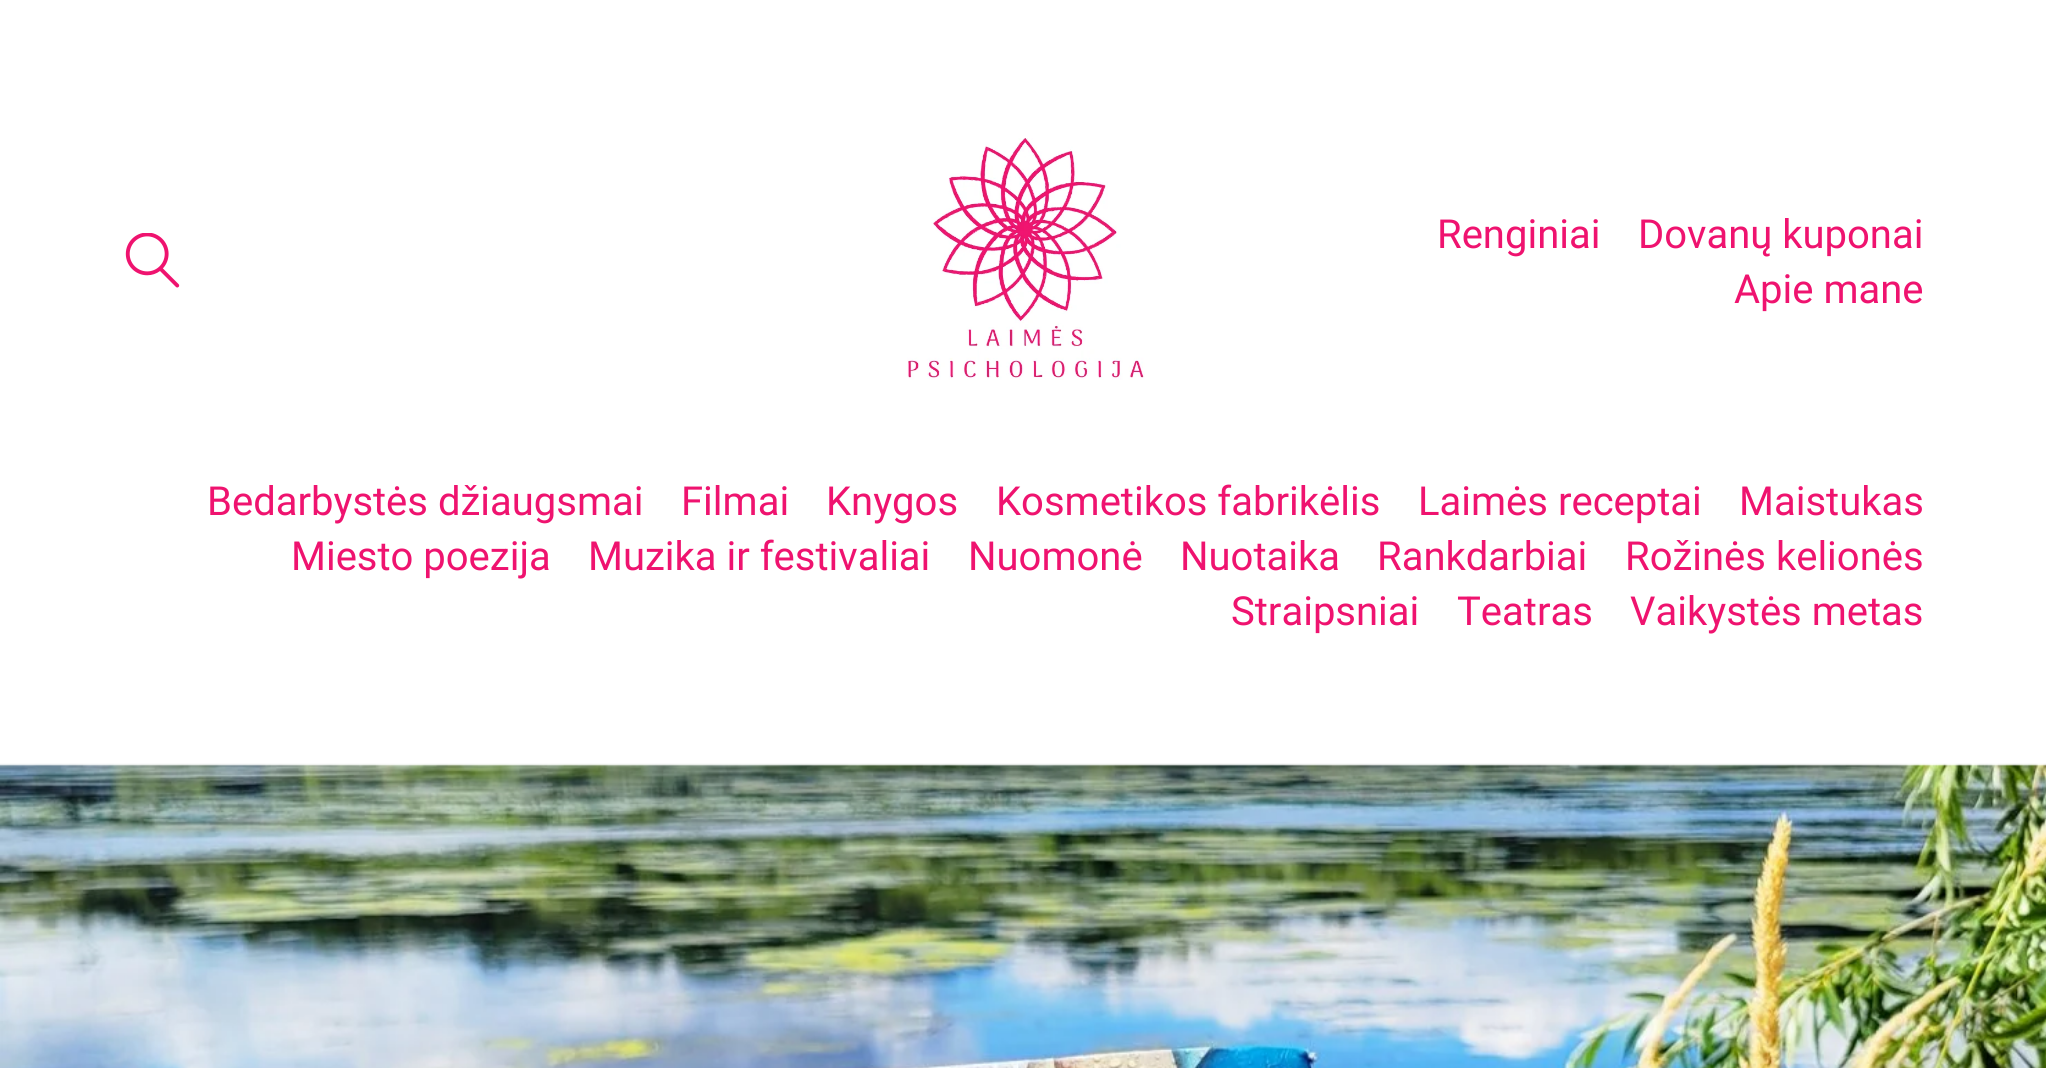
#include <cairo/cairo.h>
#include <math.h>
#include <stddef.h>

typedef struct { double x, y; const char *s; } line_t;
static cairo_t *cr;

static void rgb(unsigned color)
{
	cairo_set_source_rgb(cr, (color >> 16) / 255.0, (color >> 8 & 255) / 255.0, (color & 255) / 255.0);
}

static void image(const char *path, double x, double y, double w, double h)
{
	cairo_surface_t *image = cairo_image_surface_create_from_png(path);
	cairo_save(cr);
	cairo_set_source_surface(cr, image, x, y);
	cairo_rectangle(cr, x, y, w, h);
	cairo_fill(cr);
	cairo_restore(cr);
	cairo_surface_destroy(image);
}

int main(void) {
	cairo_surface_t *surface = cairo_image_surface_create(CAIRO_FORMAT_RGB24, 2046, 1068);
	cr = cairo_create(surface);
	cairo_font_options_t *options = cairo_font_options_create();
	cairo_font_options_set_hint_metrics(options, CAIRO_HINT_METRICS_OFF);
	cairo_font_options_set_hint_style(options, CAIRO_HINT_STYLE_NONE);
	cairo_set_font_options(cr, options);
	cairo_set_miter_limit(cr, 4);
	rgb(0xffffff);
	cairo_paint(cr);
	image("img/1.png", 125, 233, 55, 55);
	image("img/2.png", 907, 138, 238, 242);
	rgb(0xeeeeee);
	cairo_rectangle(cr, 0, 765, 2046, 1);
	cairo_fill(cr);
	image("img/3.png", 0, 763, 2046, 305);
	cairo_select_font_face(cr, "Roboto", CAIRO_FONT_SLANT_NORMAL, CAIRO_FONT_WEIGHT_NORMAL);
	cairo_set_font_size(cr, 40);
	rgb(0xef136f);
	{
		static const line_t items[] = {
			{1437, 248, "Renginiai"},
			{1638, 248, "Dovanų kuponai"},
			{1734, 303, "Apie mane"},
			{207, 515, "Bedarbystės džiaugsmai"},
			{681, 515, "Filmai"},
			{826, 515, "Knygos"},
			{996, 515, "Kosmetikos fabrikėlis"},
			{1418, 515, "Laimės receptai"},
			{1739, 515, "Maistukas"},
			{291, 570, "Miesto poezija"},
			{588, 570, "Muzika ir festivaliai"},
			{968, 570, "Nuomonė"},
			{1180, 570, "Nuotaika"},
			{1377, 570, "Rankdarbiai"},
			{1625, 570, "Rožinės kelionės"},
			{1231, 625, "Straipsniai"},
			{1457, 625, "Teatras"},
			{1630, 625, "Vaikystės metas"},
		};
		for (size_t i = 0; i < sizeof items / sizeof *items; i++) {
			cairo_move_to(cr, items[i].x, items[i].y);
			cairo_show_text(cr, items[i].s);
		}
	}
	cairo_surface_write_to_png(surface, "page.png");
	cairo_font_options_destroy(options);
	cairo_destroy(cr);
	cairo_surface_destroy(surface);
	return 0;
}
